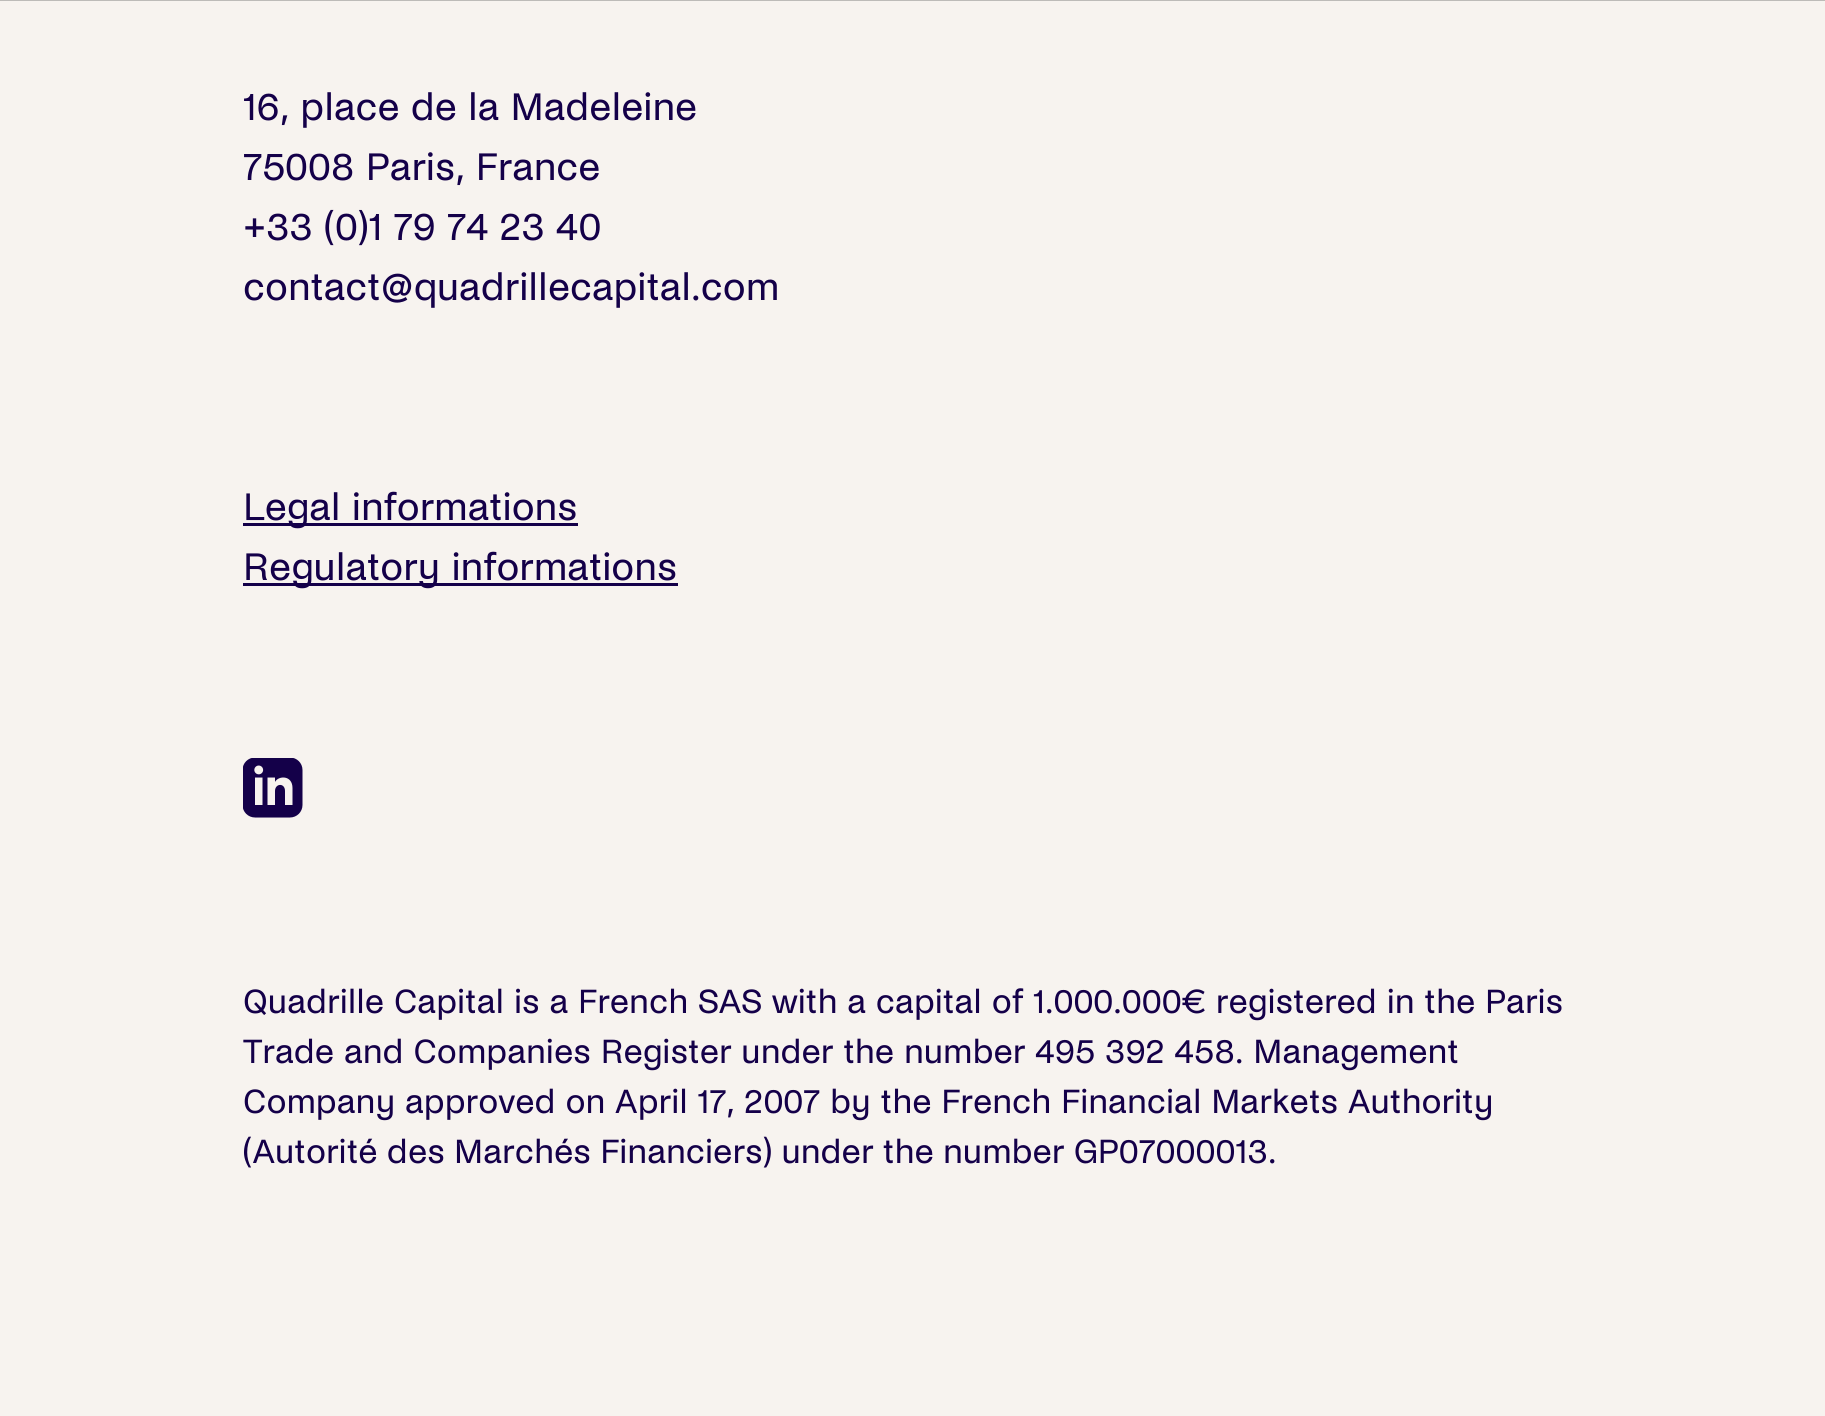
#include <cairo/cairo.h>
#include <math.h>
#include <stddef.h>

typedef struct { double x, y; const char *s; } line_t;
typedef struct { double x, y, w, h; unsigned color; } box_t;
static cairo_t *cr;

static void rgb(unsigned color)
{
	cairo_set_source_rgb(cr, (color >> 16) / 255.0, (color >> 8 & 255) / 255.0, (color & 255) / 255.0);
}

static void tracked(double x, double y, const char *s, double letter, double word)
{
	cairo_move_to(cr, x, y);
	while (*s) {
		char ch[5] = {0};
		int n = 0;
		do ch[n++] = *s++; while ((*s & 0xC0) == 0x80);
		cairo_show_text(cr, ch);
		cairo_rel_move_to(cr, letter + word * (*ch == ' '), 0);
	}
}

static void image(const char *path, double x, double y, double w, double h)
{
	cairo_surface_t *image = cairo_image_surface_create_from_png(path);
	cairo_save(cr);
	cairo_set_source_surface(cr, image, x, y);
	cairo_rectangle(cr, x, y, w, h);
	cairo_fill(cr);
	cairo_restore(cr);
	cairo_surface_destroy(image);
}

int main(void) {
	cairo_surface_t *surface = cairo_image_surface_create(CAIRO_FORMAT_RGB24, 1825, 1416);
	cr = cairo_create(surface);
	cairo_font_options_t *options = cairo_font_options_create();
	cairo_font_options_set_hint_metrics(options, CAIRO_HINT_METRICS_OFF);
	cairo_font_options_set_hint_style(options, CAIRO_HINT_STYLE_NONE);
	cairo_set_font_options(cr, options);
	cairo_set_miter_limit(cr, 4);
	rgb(0xf7f3ef);
	cairo_paint(cr);
	{
		static const box_t items[] = {
			{0, 0, 1825, 1, 0xbdbbb8},
			{243, 523, 335, 3, 0x140049},
			{243, 583, 435, 3, 0x140049},
		};
		for (size_t i = 0; i < sizeof items / sizeof *items; i++) {
			rgb(items[i].color);
			cairo_rectangle(cr, items[i].x, items[i].y, items[i].w, items[i].h);
			cairo_fill(cr);
		}
	}
	image("img/1.png", 243, 758, 60, 60);
	cairo_select_font_face(cr, "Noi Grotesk", CAIRO_FONT_SLANT_NORMAL, CAIRO_FONT_WEIGHT_NORMAL);
	cairo_set_font_size(cr, 40);
	{
		static const line_t items[] = {
			{243, 120, "16, place de la Madeleine"},
			{243, 180, "75008 Paris, France"},
			{243, 240, "+33 (0)1 79 74 23 40"},
			{243, 300, "contact@quadrillecapital.com"},
			{243, 520, "Legal informations"},
			{243, 580, "Regulatory informations"},
		};
		for (size_t i = 0; i < sizeof items / sizeof *items; i++) {
			cairo_move_to(cr, items[i].x, items[i].y);
			cairo_show_text(cr, items[i].s);
		}
	}
	cairo_set_font_size(cr, 35);
	{
		static const line_t items[] = {
			{243, 1013, "Quadrille Capital is a French SAS with a capital of 1.000.000€ registered in the Paris"},
			{243, 1063, "Trade and Companies Register under the number 495 392 458. Management"},
			{243, 1113, "Company approved on April 17, 2007 by the French Financial Markets Authority"},
		};
		for (size_t i = 0; i < sizeof items / sizeof *items; i++) {
			cairo_move_to(cr, items[i].x, items[i].y);
			cairo_show_text(cr, items[i].s);
		}
	}
	tracked(243, 1163, "(Autorité des Marchés Financiers) under the number GP07000013.", 0, -0.5);
	cairo_surface_write_to_png(surface, "page.png");
	cairo_font_options_destroy(options);
	cairo_destroy(cr);
	cairo_surface_destroy(surface);
	return 0;
}
